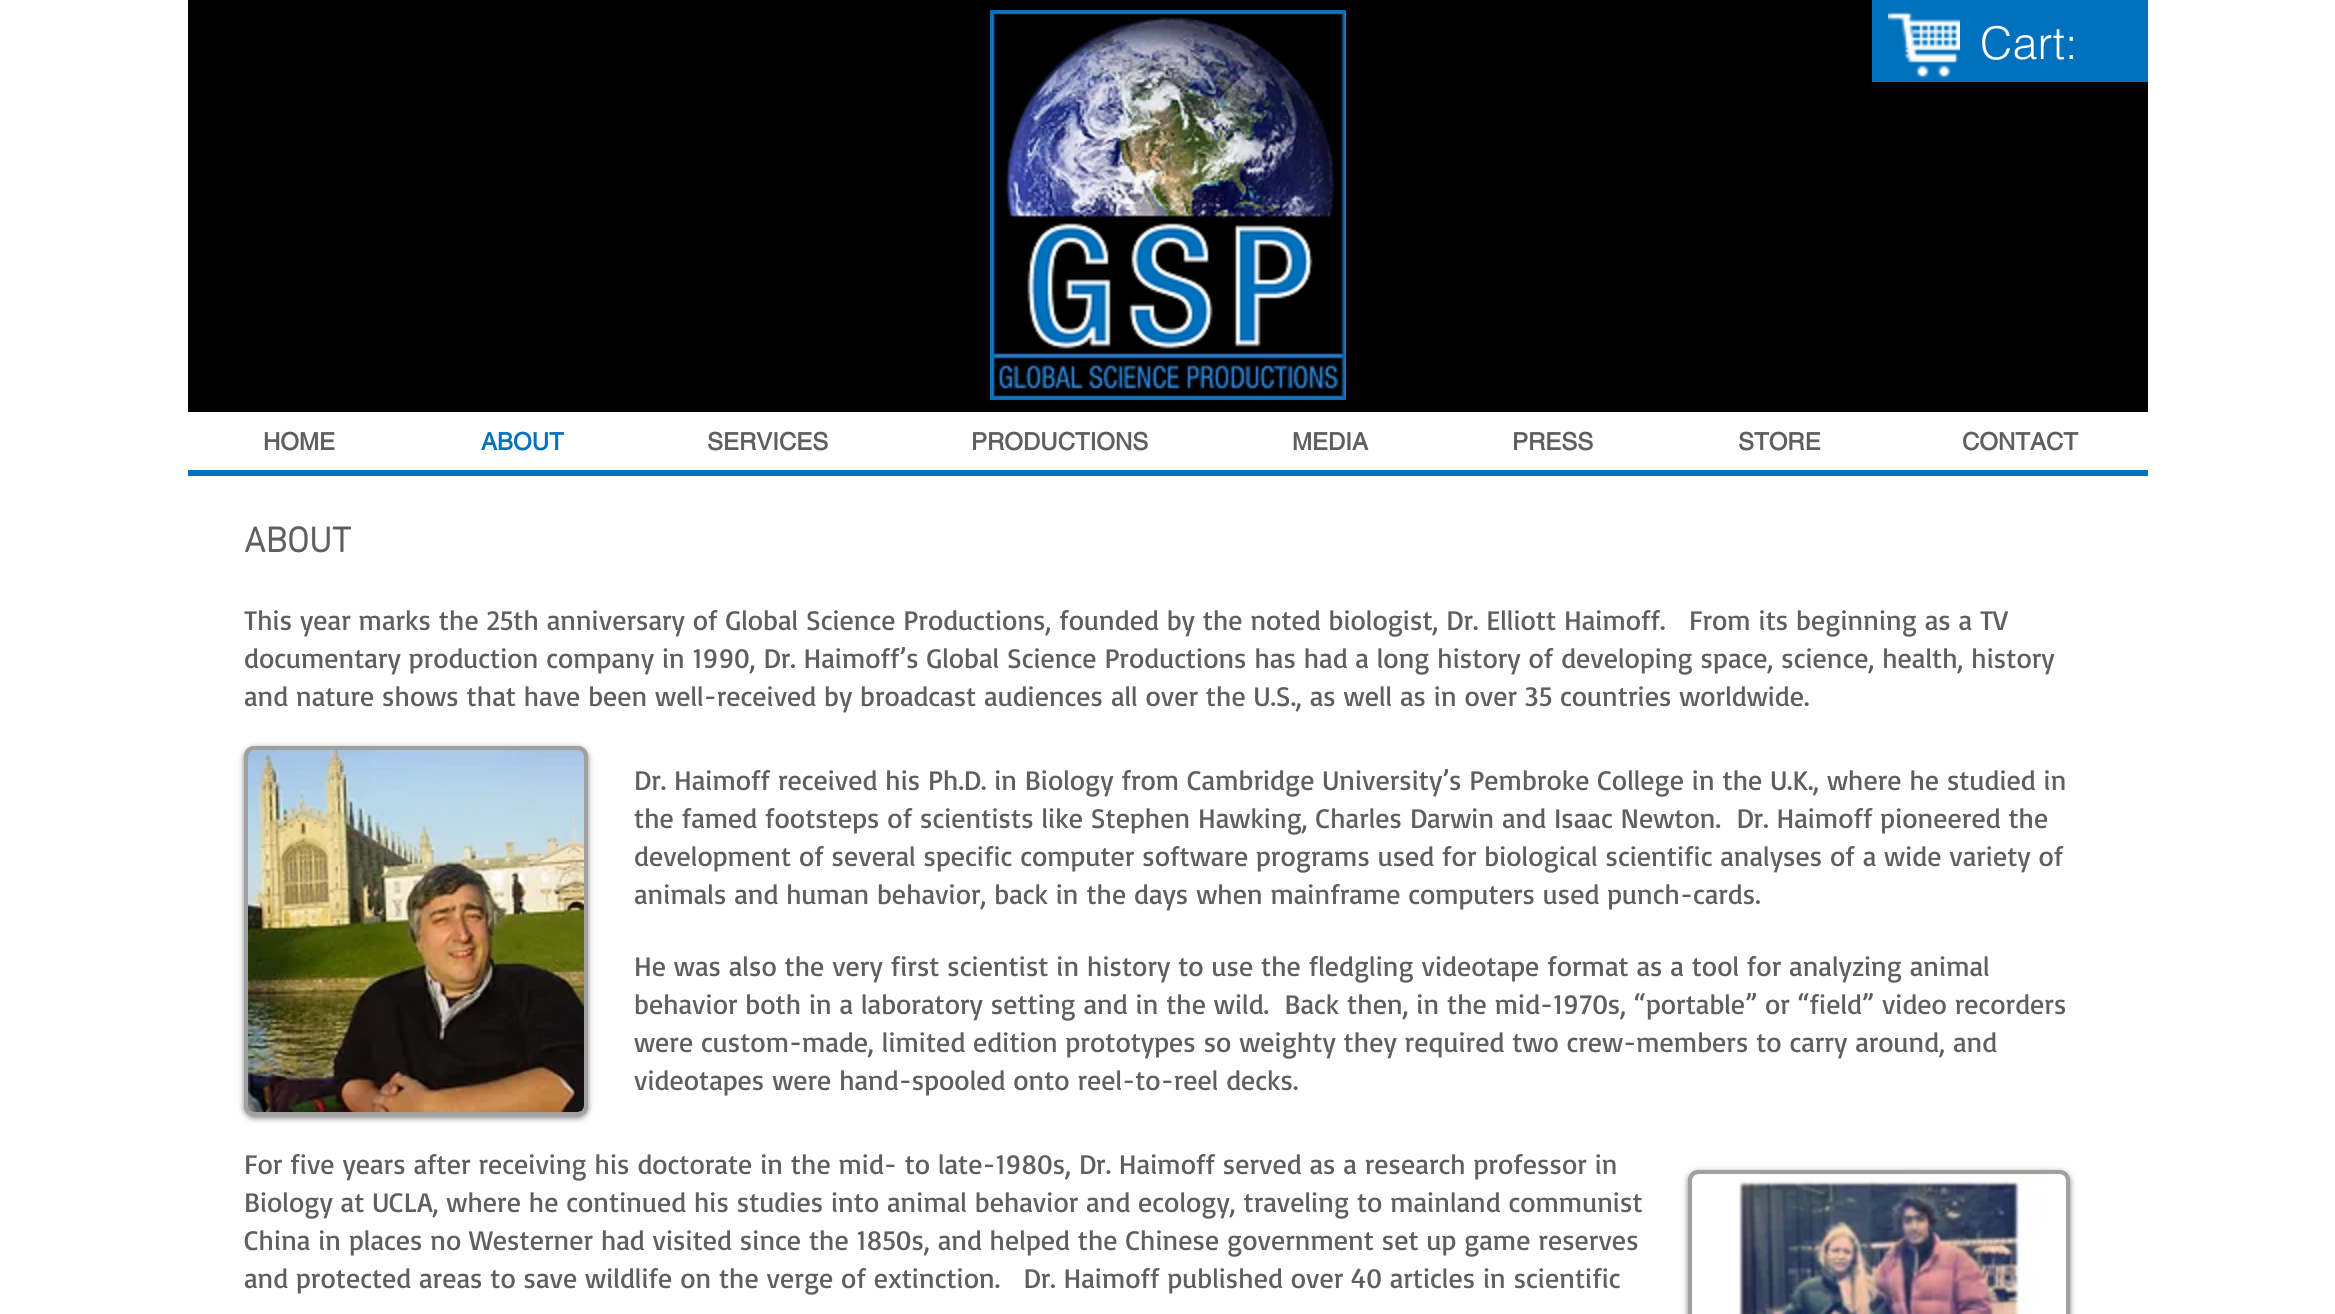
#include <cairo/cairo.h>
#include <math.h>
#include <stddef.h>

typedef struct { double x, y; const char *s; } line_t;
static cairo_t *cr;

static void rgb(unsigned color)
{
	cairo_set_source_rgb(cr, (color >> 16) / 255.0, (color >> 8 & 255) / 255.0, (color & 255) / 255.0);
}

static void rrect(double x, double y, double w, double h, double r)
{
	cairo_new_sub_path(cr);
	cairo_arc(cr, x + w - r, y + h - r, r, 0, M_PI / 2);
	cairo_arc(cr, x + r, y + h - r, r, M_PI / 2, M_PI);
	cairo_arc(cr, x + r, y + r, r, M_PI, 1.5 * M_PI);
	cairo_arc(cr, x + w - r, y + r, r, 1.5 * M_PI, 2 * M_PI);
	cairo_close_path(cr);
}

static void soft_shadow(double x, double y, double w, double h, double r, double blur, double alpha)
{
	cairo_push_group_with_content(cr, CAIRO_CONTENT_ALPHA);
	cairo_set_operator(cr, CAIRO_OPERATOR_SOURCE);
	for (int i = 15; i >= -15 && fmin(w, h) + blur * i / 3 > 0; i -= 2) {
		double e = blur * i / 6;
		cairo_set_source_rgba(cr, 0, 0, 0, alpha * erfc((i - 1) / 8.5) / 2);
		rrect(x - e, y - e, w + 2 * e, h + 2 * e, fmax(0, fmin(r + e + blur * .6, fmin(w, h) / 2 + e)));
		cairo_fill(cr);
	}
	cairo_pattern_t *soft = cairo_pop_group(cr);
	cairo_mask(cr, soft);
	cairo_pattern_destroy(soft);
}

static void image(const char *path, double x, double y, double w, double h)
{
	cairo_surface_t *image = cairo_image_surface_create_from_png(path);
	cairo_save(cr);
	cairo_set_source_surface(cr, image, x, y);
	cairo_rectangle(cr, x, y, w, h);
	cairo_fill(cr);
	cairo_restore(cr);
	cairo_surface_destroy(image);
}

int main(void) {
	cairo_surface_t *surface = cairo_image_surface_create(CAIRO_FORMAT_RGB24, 2335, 1314);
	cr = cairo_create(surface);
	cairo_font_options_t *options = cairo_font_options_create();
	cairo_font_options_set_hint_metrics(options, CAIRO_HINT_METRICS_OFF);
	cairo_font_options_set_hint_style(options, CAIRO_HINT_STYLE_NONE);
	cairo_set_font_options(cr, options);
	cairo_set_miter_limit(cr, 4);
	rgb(0xffffff);
	cairo_paint(cr);
	rgb(0x000000);
	cairo_rectangle(cr, 188, 0, 1960, 412);
	cairo_fill(cr);
	image("img/1.png", 990, 10, 356, 390);
	rgb(0x0071bc);
	cairo_rectangle(cr, 1872, 0, 276, 82);
	cairo_fill(cr);
	image("img/2.png", 1888, 11, 72, 68);
	cairo_rectangle(cr, 188, 470, 1960, 6);
	cairo_fill(cr);
	rgb(0x000000);
	soft_shadow(244, 748, 344, 370, 10, 3, 0.5);
	rgb(0xa0a09f);
	rrect(246, 748, 340, 366, 8);
	cairo_fill_preserve(cr);
	cairo_set_line_width(cr, 4);
	cairo_stroke(cr);
	image("img/3.png", 248, 750, 336, 362);
	rgb(0x000000);
	soft_shadow(1688, 1172, 382, 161, 10, 3, 0.5);
	rgb(0xa0a09f);
	rrect(1690, 1172, 378, 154, 8);
	cairo_fill_preserve(cr);
	cairo_stroke(cr);
	image("img/4.png", 1692, 1174, 374, 140);
	cairo_select_font_face(cr, "helvetica Light", CAIRO_FONT_SLANT_NORMAL, CAIRO_FONT_WEIGHT_NORMAL);
	cairo_set_font_size(cr, 45);
	rgb(0xffffff);
	cairo_move_to(cr, 1980, 59);
	cairo_show_text(cr, "Cart:");
	cairo_select_font_face(cr, "helvetica", CAIRO_FONT_SLANT_NORMAL, CAIRO_FONT_WEIGHT_BOLD);
	cairo_set_font_size(cr, 24);
	rgb(0x605e5e);
	cairo_move_to(cr, 263, 450);
	cairo_show_text(cr, "HOME");
	rgb(0x0071bc);
	cairo_move_to(cr, 481, 450);
	cairo_show_text(cr, "ABOUT");
	rgb(0x605e5e);
	{
		static const line_t items[] = {
			{707, 450, "SERVICES"},
			{971, 450, "PRODUCTIONS"},
			{1292, 450, "MEDIA"},
			{1512, 450, "PRESS"},
			{1738, 450, "STORE"},
			{1962, 450, "CONTACT"},
		};
		for (size_t i = 0; i < sizeof items / sizeof *items; i++) {
			cairo_move_to(cr, items[i].x, items[i].y);
			cairo_show_text(cr, items[i].s);
		}
	}
	cairo_select_font_face(cr, "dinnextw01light", CAIRO_FONT_SLANT_NORMAL, CAIRO_FONT_WEIGHT_BOLD);
	cairo_set_font_size(cr, 36);
	cairo_move_to(cr, 244, 552);
	cairo_show_text(cr, "ABOUT");
	cairo_select_font_face(cr, "Basic", CAIRO_FONT_SLANT_NORMAL, CAIRO_FONT_WEIGHT_NORMAL);
	cairo_set_font_size(cr, 28);
	{
		static const line_t items[] = {
			{244, 630, "This year marks the 25th anniversary of Global Science Productions, founded by the noted biologist, Dr. Elliott Haimoff.   From its beginning as a TV"},
			{244, 668, "documentary production company in 1990, Dr. Haimoff’s Global Science Productions has had a long history of developing space, science, health, history"},
			{244, 706, "and nature shows that have been well-received by broadcast audiences all over the U.S., as well as in over 35 countries worldwide."},
			{634, 790, "Dr. Haimoff received his Ph.D. in Biology from Cambridge University’s Pembroke College in the U.K., where he studied in"},
			{634, 828, "the famed footsteps of scientists like Stephen Hawking, Charles Darwin and Isaac Newton.  Dr. Haimoff pioneered the"},
			{634, 866, "development of several specific computer software programs used for biological scientific analyses of a wide variety of"},
			{634, 904, "animals and human behavior, back in the days when mainframe computers used punch-cards."},
			{634, 976, "He was also the very first scientist in history to use the fledgling videotape format as a tool for analyzing animal"},
			{634, 1014, "behavior both in a laboratory setting and in the wild.  Back then, in the mid-1970s, “portable” or “field” video recorders"},
			{634, 1052, "were custom-made, limited edition prototypes so weighty they required two crew-members to carry around, and"},
			{634, 1090, "videotapes were hand-spooled onto reel-to-reel decks."},
			{244, 1174, "For five years after receiving his doctorate in the mid- to late-1980s, Dr. Haimoff served as a research professor in"},
			{244, 1212, "Biology at UCLA, where he continued his studies into animal behavior and ecology, traveling to mainland communist"},
			{244, 1250, "China in places no Westerner had visited since the 1850s, and helped the Chinese government set up game reserves"},
			{244, 1288, "and protected areas to save wildlife on the verge of extinction.   Dr. Haimoff published over 40 articles in scientific"},
		};
		for (size_t i = 0; i < sizeof items / sizeof *items; i++) {
			cairo_move_to(cr, items[i].x, items[i].y);
			cairo_show_text(cr, items[i].s);
		}
	}
	cairo_surface_write_to_png(surface, "page.png");
	cairo_font_options_destroy(options);
	cairo_destroy(cr);
	cairo_surface_destroy(surface);
	return 0;
}
